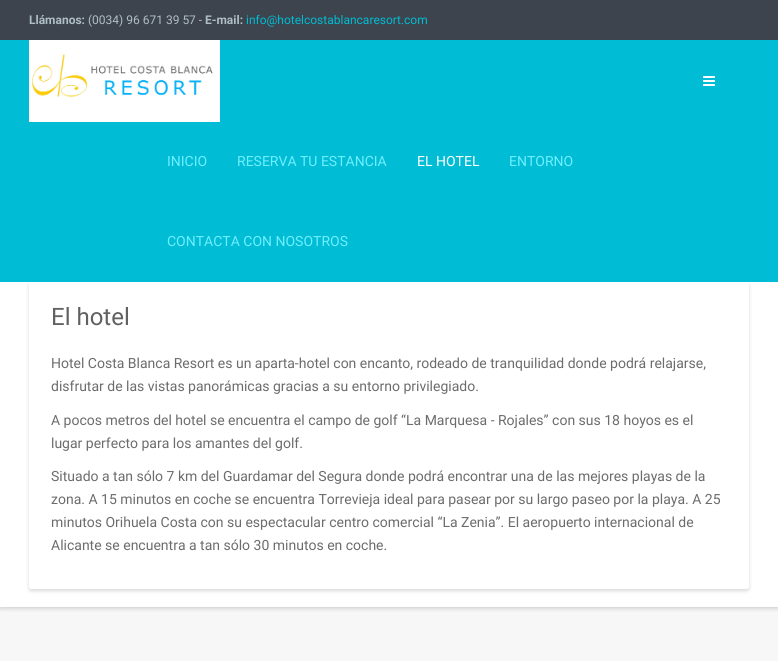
#include <cairo/cairo.h>
#include <math.h>
#include <stddef.h>

typedef struct { double x, y; const char *s; } line_t;
static cairo_t *cr;

static void rgb(unsigned color)
{
	cairo_set_source_rgb(cr, (color >> 16) / 255.0, (color >> 8 & 255) / 255.0, (color & 255) / 255.0);
}

static void rrect(double x, double y, double w, double h, double r)
{
	cairo_new_sub_path(cr);
	cairo_arc(cr, x + w - r, y + h - r, r, 0, M_PI / 2);
	cairo_arc(cr, x + r, y + h - r, r, M_PI / 2, M_PI);
	cairo_arc(cr, x + r, y + r, r, M_PI, 1.5 * M_PI);
	cairo_arc(cr, x + w - r, y + r, r, 1.5 * M_PI, 2 * M_PI);
	cairo_close_path(cr);
}

static void soft_shadow(double x, double y, double w, double h, double r, double blur, double alpha)
{
	cairo_push_group_with_content(cr, CAIRO_CONTENT_ALPHA);
	cairo_set_operator(cr, CAIRO_OPERATOR_SOURCE);
	for (int i = 15; i >= -15 && fmin(w, h) + blur * i / 3 > 0; i -= 2) {
		double e = blur * i / 6;
		cairo_set_source_rgba(cr, 0, 0, 0, alpha * erfc((i - 1) / 8.5) / 2);
		rrect(x - e, y - e, w + 2 * e, h + 2 * e, fmax(0, fmin(r + e + blur * .6, fmin(w, h) / 2 + e)));
		cairo_fill(cr);
	}
	cairo_pattern_t *soft = cairo_pop_group(cr);
	cairo_mask(cr, soft);
	cairo_pattern_destroy(soft);
}

static void image(const char *path, double x, double y, double w, double h)
{
	cairo_surface_t *image = cairo_image_surface_create_from_png(path);
	cairo_save(cr);
	cairo_set_source_surface(cr, image, x, y);
	cairo_rectangle(cr, x, y, w, h);
	cairo_fill(cr);
	cairo_restore(cr);
	cairo_surface_destroy(image);
}

int main(void) {
	cairo_surface_t *surface = cairo_image_surface_create(CAIRO_FORMAT_RGB24, 778, 661);
	cr = cairo_create(surface);
	cairo_font_options_t *options = cairo_font_options_create();
	cairo_font_options_set_hint_metrics(options, CAIRO_HINT_METRICS_OFF);
	cairo_font_options_set_hint_style(options, CAIRO_HINT_STYLE_NONE);
	cairo_set_font_options(cr, options);
	cairo_set_miter_limit(cr, 4);
	rgb(0xf7f7f7);
	cairo_paint(cr);
	rgb(0x3d444d);
	cairo_rectangle(cr, 0, 0, 778, 40);
	cairo_fill(cr);
	rgb(0x000000);
	soft_shadow(0, 284, 778, 325, 0, 2, 0.15);
	rgb(0xffffff);
	cairo_rectangle(cr, 0, 282, 778, 325);
	cairo_fill(cr);
	rgb(0x000000);
	soft_shadow(29, 284, 720, 307, 2, 2, 0.15);
	rgb(0x00bcd4);
	cairo_rectangle(cr, 0, 40, 778, 242);
	cairo_fill(cr);
	image("img/1.png", 29, 40, 191, 82);
	image("img/2.png", 703, 76, 12, 10);
	rgb(0xffffff);
	rrect(29, 282, 720, 307, 2);
	cairo_fill(cr);
	cairo_select_font_face(cr, "Roboto", CAIRO_FONT_SLANT_NORMAL, CAIRO_FONT_WEIGHT_BOLD);
	cairo_set_font_size(cr, 12);
	rgb(0xb0bec5);
	cairo_move_to(cr, 29, 24);
	cairo_show_text(cr, "Llámanos:");
	cairo_select_font_face(cr, "Roboto", CAIRO_FONT_SLANT_NORMAL, CAIRO_FONT_WEIGHT_NORMAL);
	cairo_move_to(cr, 88, 24);
	cairo_show_text(cr, "(0034) 96 671 39 57 -");
	cairo_select_font_face(cr, "Roboto", CAIRO_FONT_SLANT_NORMAL, CAIRO_FONT_WEIGHT_BOLD);
	cairo_move_to(cr, 205, 24);
	cairo_show_text(cr, "E-mail:");
	cairo_select_font_face(cr, "Roboto", CAIRO_FONT_SLANT_NORMAL, CAIRO_FONT_WEIGHT_NORMAL);
	rgb(0x00bcd4);
	cairo_move_to(cr, 246, 24);
	cairo_show_text(cr, "info@hotelcostablancaresort.com");
	cairo_set_font_size(cr, 14);
	rgb(0x6eefff);
	cairo_move_to(cr, 167, 166);
	cairo_show_text(cr, "INICIO");
	cairo_move_to(cr, 237, 166);
	cairo_show_text(cr, "RESERVA TU ESTANCIA");
	rgb(0xffffff);
	cairo_move_to(cr, 417, 166);
	cairo_show_text(cr, "EL HOTEL");
	rgb(0x6eefff);
	cairo_move_to(cr, 509, 166);
	cairo_show_text(cr, "ENTORNO");
	cairo_move_to(cr, 167, 246);
	cairo_show_text(cr, "CONTACTA CON NOSOTROS");
	cairo_set_font_size(cr, 24);
	rgb(0x616161);
	cairo_move_to(cr, 51, 325);
	cairo_show_text(cr, "El hotel");
	cairo_set_font_size(cr, 14);
	rgb(0x6c6c6c);
	{
		static const line_t items[] = {
			{51, 368, "Hotel Costa Blanca Resort es un aparta-hotel con encanto, rodeado de tranquilidad donde podrá relajarse,"},
			{51, 391, "disfrutar de las vistas panorámicas gracias a su entorno privilegiado."},
			{51, 425, "A pocos metros del hotel se encuentra el campo de golf “La Marquesa - Rojales” con sus 18 hoyos es el"},
			{51, 448, "lugar perfecto para los amantes del golf."},
			{51, 481, "Situado a tan sólo 7 km del Guardamar del Segura donde podrá encontrar una de las mejores playas de la"},
			{51, 504, "zona. A 15 minutos en coche se encuentra Torrevieja ideal para pasear por su largo paseo por la playa. A 25"},
			{51, 527, "minutos Orihuela Costa con su espectacular centro comercial “La Zenia”. El aeropuerto internacional de"},
			{51, 550, "Alicante se encuentra a tan sólo 30 minutos en coche."},
		};
		for (size_t i = 0; i < sizeof items / sizeof *items; i++) {
			cairo_move_to(cr, items[i].x, items[i].y);
			cairo_show_text(cr, items[i].s);
		}
	}
	cairo_surface_write_to_png(surface, "page.png");
	cairo_font_options_destroy(options);
	cairo_destroy(cr);
	cairo_surface_destroy(surface);
	return 0;
}
